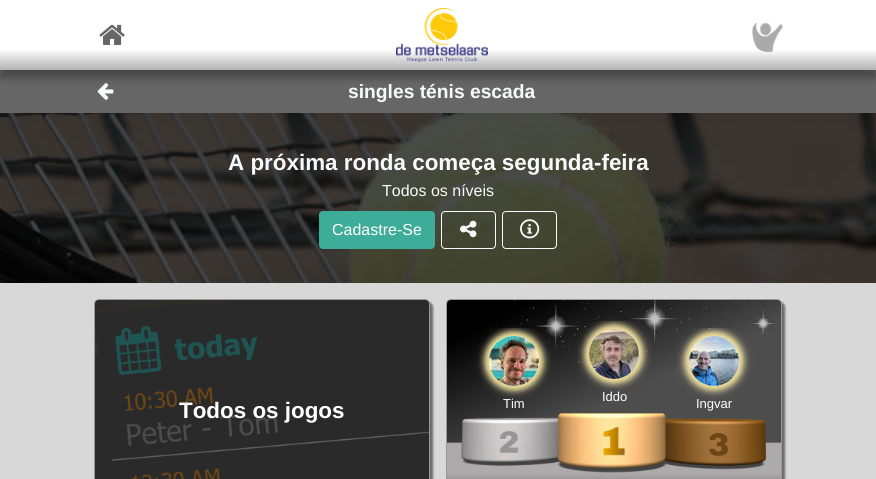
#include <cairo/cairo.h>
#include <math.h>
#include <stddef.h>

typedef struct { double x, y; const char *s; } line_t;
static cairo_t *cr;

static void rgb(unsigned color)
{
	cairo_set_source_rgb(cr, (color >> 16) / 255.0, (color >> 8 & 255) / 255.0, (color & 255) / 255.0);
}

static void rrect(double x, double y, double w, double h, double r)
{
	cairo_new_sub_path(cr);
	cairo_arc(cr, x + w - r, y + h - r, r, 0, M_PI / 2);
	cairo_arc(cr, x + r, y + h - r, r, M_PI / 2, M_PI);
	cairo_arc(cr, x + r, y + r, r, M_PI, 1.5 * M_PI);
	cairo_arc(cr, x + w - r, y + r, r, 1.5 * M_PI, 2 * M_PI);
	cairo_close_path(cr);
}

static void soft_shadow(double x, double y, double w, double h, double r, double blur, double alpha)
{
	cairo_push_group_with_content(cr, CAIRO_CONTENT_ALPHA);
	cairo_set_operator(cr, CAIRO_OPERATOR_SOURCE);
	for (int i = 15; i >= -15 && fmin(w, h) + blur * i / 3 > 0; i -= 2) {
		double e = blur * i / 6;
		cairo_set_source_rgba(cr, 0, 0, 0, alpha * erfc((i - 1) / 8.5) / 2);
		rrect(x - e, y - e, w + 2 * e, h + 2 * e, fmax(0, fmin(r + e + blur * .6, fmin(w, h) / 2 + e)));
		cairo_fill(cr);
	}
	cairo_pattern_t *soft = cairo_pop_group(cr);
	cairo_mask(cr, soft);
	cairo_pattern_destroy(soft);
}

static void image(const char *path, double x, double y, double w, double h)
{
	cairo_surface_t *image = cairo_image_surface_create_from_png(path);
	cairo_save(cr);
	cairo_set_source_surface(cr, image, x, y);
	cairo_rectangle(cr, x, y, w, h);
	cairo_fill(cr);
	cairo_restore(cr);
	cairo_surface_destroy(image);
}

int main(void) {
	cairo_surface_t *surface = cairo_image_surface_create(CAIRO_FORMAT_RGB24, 876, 479);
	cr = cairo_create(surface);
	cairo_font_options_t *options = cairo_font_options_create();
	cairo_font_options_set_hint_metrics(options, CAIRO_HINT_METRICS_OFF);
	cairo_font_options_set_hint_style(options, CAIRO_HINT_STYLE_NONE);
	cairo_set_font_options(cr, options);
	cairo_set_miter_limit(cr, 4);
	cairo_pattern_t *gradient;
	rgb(0x666666);
	cairo_paint(cr);
	image("img/4.png", 97, 83, 17, 17);
	rgb(0x000000);
	soft_shadow(0, 8, 876, 70, 0, 4, 0.3);
	gradient = cairo_pattern_create_linear(438, 0, 438, 70);
	cairo_pattern_add_color_stop_rgba(gradient, 0, 1, 1, 1, 1);
	cairo_pattern_add_color_stop_rgba(gradient, 0.7, 1, 1, 1, 1);
	cairo_pattern_add_color_stop_rgba(gradient, 1, 0.702, 0.702, 0.702, 1);
	cairo_set_source(cr, gradient);
	cairo_pattern_destroy(gradient);
	cairo_rectangle(cr, 0, 0, 876, 70);
	cairo_fill(cr);
	image("img/1.png", 99, 24, 26, 21);
	image("img/2.png", 396, 8, 92, 54);
	image("img/3.png", 752, 22, 31, 30);
	rgb(0xd8d8d8);
	cairo_rectangle(cr, 0, 283, 876, 196);
	cairo_fill(cr);
	image("img/5.png", 0, 113, 876, 170);
	rgb(0x3dac98);
	rrect(319.5, 211.5, 115, 37, 3.5);
	cairo_fill_preserve(cr);
	cairo_set_line_width(cr, 1);
	cairo_stroke(cr);
	rrect(441.5, 211.5, 54, 37, 3.5);
	rgb(0xf8f9fa);
	cairo_stroke(cr);
	image("img/6.png", 460, 220, 17, 18);
	rrect(502.5, 211.5, 54, 37, 3.5);
	cairo_stroke(cr);
	image("img/7.png", 520, 219, 20, 20);
	rgb(0x000000);
	soft_shadow(97, 302, 336, 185, 5, 1, 0.5);
	rrect(94.5, 299.5, 335, 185, 4.5);
	rgb(0x999999);
	cairo_stroke(cr);
	image("img/8.png", 95, 300, 334, 179);
	cairo_set_source_rgba(cr, 0, 0, 0, 0.5);
	rrect(95, 300, 334, 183, 4);
	cairo_fill(cr);
	rgb(0x000000);
	soft_shadow(449, 302, 336, 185, 5, 1, 0.5);
	rrect(446.5, 299.5, 335, 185, 4.5);
	rgb(0x999999);
	cairo_stroke(cr);
	image("img/9.png", 447, 300, 334, 179);
	cairo_save(cr);
	cairo_rectangle(cr, 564, 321, 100, 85);
	cairo_clip(cr);
	rgb(0xeedc8b);
	soft_shadow(589, 329, 50, 50, 25, 6, 1);
	rgb(0xffffff);
	soft_shadow(589, 329, 50, 50, 25, 5, 1);
	cairo_restore(cr);
	rgb(0xeedc8b);
	soft_shadow(589, 329, 50, 50, 25, 4.5, 1);
	soft_shadow(589, 329, 50, 50, 25, 4, 1);
	soft_shadow(589, 329, 50, 50, 25, 3, 1);
	rgb(0xffffff);
	cairo_arc(cr, 614, 354, 25, 0, 2 * M_PI);
	cairo_fill(cr);
	image("img/10.png", 589, 329, 50, 50);
	cairo_save(cr);
	cairo_rectangle(cr, 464, 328, 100, 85);
	cairo_clip(cr);
	rgb(0xeedc8b);
	soft_shadow(489, 336, 50, 50, 25, 6, 1);
	rgb(0xffffff);
	soft_shadow(489, 336, 50, 50, 25, 5, 1);
	cairo_restore(cr);
	rgb(0xeedc8b);
	soft_shadow(489, 336, 50, 50, 25, 4.5, 1);
	soft_shadow(489, 336, 50, 50, 25, 4, 1);
	soft_shadow(489, 336, 50, 50, 25, 3, 1);
	rgb(0xffffff);
	cairo_arc(cr, 514, 361, 25, 0, 2 * M_PI);
	cairo_fill(cr);
	image("img/11.png", 489, 336, 50, 50);
	cairo_save(cr);
	cairo_rectangle(cr, 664, 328, 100, 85);
	cairo_clip(cr);
	rgb(0xeedc8b);
	soft_shadow(689, 336, 50, 50, 25, 6, 1);
	rgb(0xffffff);
	soft_shadow(689, 336, 50, 50, 25, 5, 1);
	cairo_restore(cr);
	rgb(0xeedc8b);
	soft_shadow(689, 336, 50, 50, 25, 4.5, 1);
	soft_shadow(689, 336, 50, 50, 25, 4, 1);
	soft_shadow(689, 336, 50, 50, 25, 3, 1);
	rgb(0xffffff);
	cairo_arc(cr, 714, 361, 25, 0, 2 * M_PI);
	cairo_fill(cr);
	image("img/12.png", 689, 336, 50, 50);
	cairo_select_font_face(cr, "Liberation Sans", CAIRO_FONT_SLANT_NORMAL, CAIRO_FONT_WEIGHT_BOLD);
	cairo_set_font_size(cr, 19.25);
	rgb(0xf8f9fa);
	cairo_move_to(cr, 348, 98);
	cairo_show_text(cr, "singles ténis escada");
	cairo_set_font_size(cr, 22.4);
	cairo_move_to(cr, 228, 170);
	cairo_show_text(cr, "A próxima ronda começa segunda-feira");
	cairo_select_font_face(cr, "Liberation Sans", CAIRO_FONT_SLANT_NORMAL, CAIRO_FONT_WEIGHT_NORMAL);
	cairo_set_font_size(cr, 16);
	cairo_move_to(cr, 382, 196);
	cairo_show_text(cr, "Todos os níveis");
	rgb(0xffffff);
	cairo_move_to(cr, 332, 235);
	cairo_show_text(cr, "Cadastre-Se");
	cairo_select_font_face(cr, "Liberation Sans", CAIRO_FONT_SLANT_NORMAL, CAIRO_FONT_WEIGHT_BOLD);
	cairo_set_font_size(cr, 22.4);
	cairo_move_to(cr, 179, 418);
	cairo_show_text(cr, "Todos os jogos");
	cairo_select_font_face(cr, "Liberation Sans", CAIRO_FONT_SLANT_NORMAL, CAIRO_FONT_WEIGHT_NORMAL);
	cairo_set_font_size(cr, 13);
	{
		static const line_t items[] = {
			{602, 401, "Iddo"},
			{503, 408, "Tim"},
			{696, 408, "Ingvar"},
		};
		for (size_t i = 0; i < sizeof items / sizeof *items; i++) {
			cairo_move_to(cr, items[i].x, items[i].y);
			cairo_show_text(cr, items[i].s);
		}
	}
	cairo_surface_write_to_png(surface, "page.png");
	cairo_font_options_destroy(options);
	cairo_destroy(cr);
	cairo_surface_destroy(surface);
	return 0;
}
